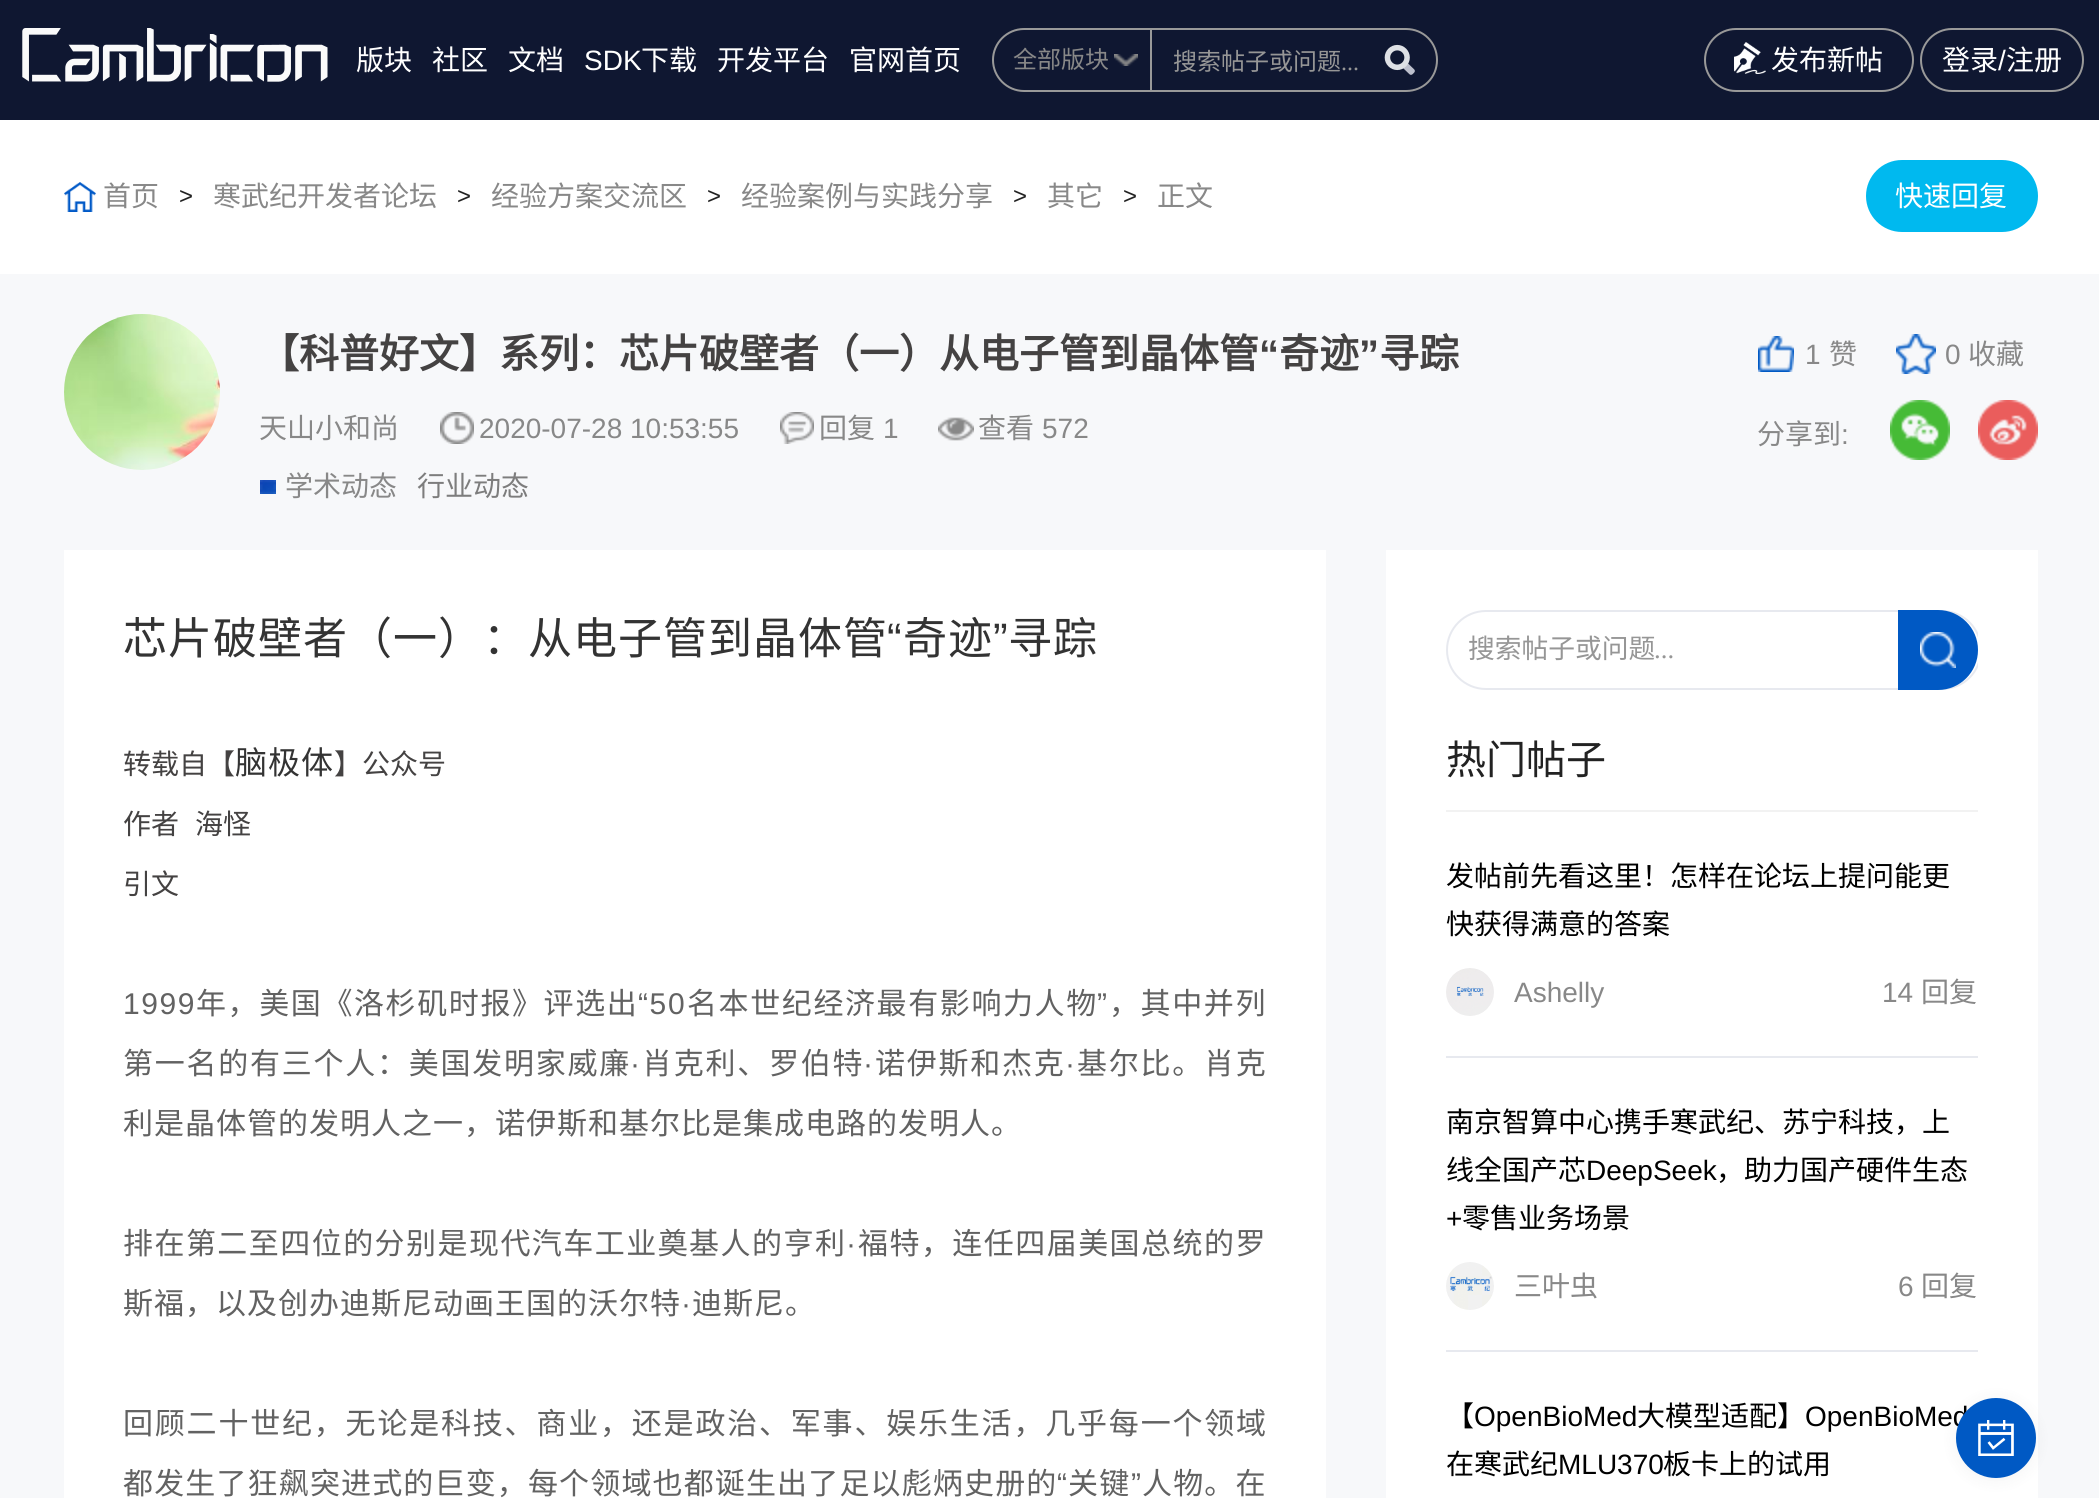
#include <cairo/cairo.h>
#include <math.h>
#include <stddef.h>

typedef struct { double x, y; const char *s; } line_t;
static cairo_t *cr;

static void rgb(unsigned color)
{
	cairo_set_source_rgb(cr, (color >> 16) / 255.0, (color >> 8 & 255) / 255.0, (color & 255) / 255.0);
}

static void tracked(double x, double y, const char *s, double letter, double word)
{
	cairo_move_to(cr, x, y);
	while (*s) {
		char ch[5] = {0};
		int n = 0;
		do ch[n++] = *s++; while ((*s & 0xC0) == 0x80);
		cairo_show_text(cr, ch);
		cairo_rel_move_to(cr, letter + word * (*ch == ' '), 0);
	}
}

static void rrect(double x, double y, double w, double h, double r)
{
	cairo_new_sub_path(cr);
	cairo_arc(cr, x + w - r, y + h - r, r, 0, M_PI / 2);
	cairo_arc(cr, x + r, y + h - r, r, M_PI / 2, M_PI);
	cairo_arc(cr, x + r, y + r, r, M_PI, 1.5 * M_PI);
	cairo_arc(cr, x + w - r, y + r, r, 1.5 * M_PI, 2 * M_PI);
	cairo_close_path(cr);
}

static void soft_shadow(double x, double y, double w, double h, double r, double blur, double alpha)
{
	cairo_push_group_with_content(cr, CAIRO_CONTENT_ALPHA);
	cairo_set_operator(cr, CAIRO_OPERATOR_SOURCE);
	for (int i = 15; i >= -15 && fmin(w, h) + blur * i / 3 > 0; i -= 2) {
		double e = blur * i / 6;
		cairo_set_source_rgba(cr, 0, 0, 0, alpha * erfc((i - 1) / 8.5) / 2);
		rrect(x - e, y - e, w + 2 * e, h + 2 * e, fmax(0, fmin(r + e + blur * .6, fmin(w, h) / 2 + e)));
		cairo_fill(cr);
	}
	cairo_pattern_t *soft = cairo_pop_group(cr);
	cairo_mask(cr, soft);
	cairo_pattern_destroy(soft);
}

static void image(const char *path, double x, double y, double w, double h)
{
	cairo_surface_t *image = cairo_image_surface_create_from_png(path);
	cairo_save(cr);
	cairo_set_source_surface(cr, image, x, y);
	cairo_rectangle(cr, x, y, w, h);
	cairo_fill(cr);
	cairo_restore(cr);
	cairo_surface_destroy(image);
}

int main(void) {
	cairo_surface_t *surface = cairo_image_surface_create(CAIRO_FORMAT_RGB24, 2099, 1498);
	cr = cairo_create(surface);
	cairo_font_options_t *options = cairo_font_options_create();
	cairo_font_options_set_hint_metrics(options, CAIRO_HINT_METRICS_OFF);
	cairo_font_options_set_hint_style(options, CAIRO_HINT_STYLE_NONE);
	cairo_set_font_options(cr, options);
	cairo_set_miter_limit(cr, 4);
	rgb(0xf7f8fa);
	cairo_paint(cr);
	rgb(0x0f1731);
	cairo_rectangle(cr, 0, 0, 2099, 120);
	cairo_fill(cr);
	image("img/1.png", 22, 28, 306, 54);
	image("img/2.png", 1114, 54, 24, 12);
	cairo_new_path(cr);
	cairo_move_to(cr, 1024, 29);
	cairo_line_to(cr, 1151, 29);
	cairo_line_to(cr, 1151, 91);
	cairo_line_to(cr, 1024, 91);
	cairo_curve_to(cr, 1007, 91, 993, 77, 993, 60);
	cairo_curve_to(cr, 993, 43, 1007, 29, 1024, 29);
	cairo_close_path(cr);
	rgb(0x999999);
	cairo_stroke(cr);
	cairo_set_fill_rule(cr, CAIRO_FILL_RULE_EVEN_ODD);
	cairo_new_path(cr);
	cairo_move_to(cr, 1152, 28);
	cairo_line_to(cr, 1406, 28);
	cairo_curve_to(cr, 1424, 28, 1438, 42, 1438, 60);
	cairo_curve_to(cr, 1438, 78, 1424, 92, 1406, 92);
	cairo_line_to(cr, 1152, 92);
	cairo_close_path(cr);
	cairo_move_to(cr, 1152, 30);
	cairo_line_to(cr, 1406, 30);
	cairo_curve_to(cr, 1423, 30, 1436, 43, 1436, 60);
	cairo_curve_to(cr, 1436, 77, 1423, 90, 1406, 90);
	cairo_line_to(cr, 1152, 90);
	cairo_close_path(cr);
	cairo_fill(cr);
	image("img/3.png", 1384, 44, 31, 31);
	rrect(1705, 29, 208, 62, 31);
	cairo_stroke(cr);
	image("img/4.png", 1734, 42, 32, 32);
	rrect(1921, 29, 162, 62, 31);
	cairo_stroke(cr);
	rgb(0xffffff);
	cairo_rectangle(cr, 0, 120, 2099, 154);
	cairo_fill(cr);
	image("img/5.png", 64, 182, 32, 30);
	rgb(0x00b9ef);
	rrect(1866, 160, 172, 72, 36);
	cairo_fill(cr);
	image("img/6.png", 64, 314, 156, 156);
	image("img/7.png", 440, 412, 34, 32);
	image("img/8.png", 780, 412, 34, 32);
	image("img/9.png", 938, 417, 36, 24);
	image("img/10.png", 260, 480, 16, 14);
	image("img/11.png", 1758, 336, 36, 36);
	image("img/12.png", 1896, 334, 40, 40);
	image("img/13.png", 1890, 400, 60, 60);
	image("img/14.png", 1978, 400, 60, 60);
	rgb(0xffffff);
	cairo_rectangle(cr, 64, 550, 1262, 948);
	cairo_fill(cr);
	cairo_rectangle(cr, 1386, 550, 652, 948);
	cairo_fill(cr);
	cairo_save(cr);
	cairo_set_fill_rule(cr, CAIRO_FILL_RULE_WINDING);
	cairo_rectangle(cr, 1446, 610, 532, 80);
	cairo_clip(cr);
	rrect(1447, 611, 534, 78, 39);
	rgb(0xe7e9ef);
	cairo_stroke(cr);
	cairo_restore(cr);
	rgb(0x0059c4);
	cairo_new_path(cr);
	cairo_move_to(cr, 1898, 610);
	cairo_line_to(cr, 1938, 610);
	cairo_curve_to(cr, 1960, 610, 1978, 628, 1978, 650);
	cairo_curve_to(cr, 1978, 672, 1960, 690, 1938, 690);
	cairo_line_to(cr, 1898, 690);
	cairo_close_path(cr);
	cairo_fill(cr);
	image("img/15.png", 1920, 632, 36, 36);
	rgb(0xf2f2f2);
	cairo_rectangle(cr, 1446, 810, 532, 2);
	cairo_fill(cr);
	rgb(0xe7e9ef);
	cairo_rectangle(cr, 1446, 1056, 532, 2);
	cairo_fill(cr);
	image("img/16.png", 1446, 968, 48, 48);
	cairo_rectangle(cr, 1446, 1350, 532, 2);
	cairo_fill(cr);
	image("img/17.png", 1446, 1262, 48, 48);
	rgb(0x000000);
	soft_shadow(1956, 1400, 80, 80, 40, 8, 0.05);
	cairo_select_font_face(cr, "Noto Sans CJK SC", CAIRO_FONT_SLANT_NORMAL, CAIRO_FONT_WEIGHT_NORMAL);
	cairo_set_font_size(cr, 28);
	rgb(0xffffff);
	{
		static const line_t items[] = {
			{356, 70, "版块"},
			{432, 70, "社区"},
			{508, 70, "文档"},
		};
		for (size_t i = 0; i < sizeof items / sizeof *items; i++) {
			cairo_move_to(cr, items[i].x, items[i].y);
			cairo_show_text(cr, items[i].s);
		}
	}
	cairo_select_font_face(cr, "Liberation Sans", CAIRO_FONT_SLANT_NORMAL, CAIRO_FONT_WEIGHT_NORMAL);
	cairo_move_to(cr, 584, 70);
	cairo_show_text(cr, "SDK");
	cairo_select_font_face(cr, "Noto Sans CJK SC", CAIRO_FONT_SLANT_NORMAL, CAIRO_FONT_WEIGHT_NORMAL);
	{
		static const line_t items[] = {
			{641, 70, "下载"},
			{717, 70, "开发平台"},
			{849, 70, "官网首页"},
		};
		for (size_t i = 0; i < sizeof items / sizeof *items; i++) {
			cairo_move_to(cr, items[i].x, items[i].y);
			cairo_show_text(cr, items[i].s);
		}
	}
	cairo_set_font_size(cr, 24);
	rgb(0x888888);
	cairo_move_to(cr, 1013, 68);
	cairo_show_text(cr, "全部版块");
	rgb(0x969696);
	cairo_move_to(cr, 1173, 70);
	cairo_show_text(cr, "搜索帖子或问题");
	cairo_select_font_face(cr, "Liberation Serif", CAIRO_FONT_SLANT_NORMAL, CAIRO_FONT_WEIGHT_NORMAL);
	cairo_move_to(cr, 1341, 70);
	cairo_show_text(cr, "...");
	cairo_select_font_face(cr, "Noto Sans CJK SC", CAIRO_FONT_SLANT_NORMAL, CAIRO_FONT_WEIGHT_NORMAL);
	cairo_set_font_size(cr, 28);
	rgb(0xffffff);
	cairo_move_to(cr, 1771, 70);
	cairo_show_text(cr, "发布新帖");
	cairo_move_to(cr, 1942, 70);
	cairo_show_text(cr, "登录");
	cairo_select_font_face(cr, "Liberation Sans", CAIRO_FONT_SLANT_NORMAL, CAIRO_FONT_WEIGHT_NORMAL);
	cairo_move_to(cr, 1998, 70);
	cairo_show_text(cr, "/");
	cairo_select_font_face(cr, "Noto Sans CJK SC", CAIRO_FONT_SLANT_NORMAL, CAIRO_FONT_WEIGHT_NORMAL);
	cairo_move_to(cr, 2006, 70);
	cairo_show_text(cr, "注册");
	rgb(0x888888);
	cairo_move_to(cr, 103, 206);
	cairo_show_text(cr, "首页");
	cairo_select_font_face(cr, "Liberation Sans", CAIRO_FONT_SLANT_NORMAL, CAIRO_FONT_WEIGHT_NORMAL);
	cairo_set_font_size(cr, 24);
	rgb(0x222222);
	cairo_move_to(cr, 179, 204);
	cairo_show_text(cr, ">");
	cairo_select_font_face(cr, "Noto Sans CJK SC", CAIRO_FONT_SLANT_NORMAL, CAIRO_FONT_WEIGHT_NORMAL);
	cairo_set_font_size(cr, 28);
	rgb(0x888888);
	cairo_move_to(cr, 213, 206);
	cairo_show_text(cr, "寒武纪开发者论坛");
	cairo_select_font_face(cr, "Liberation Sans", CAIRO_FONT_SLANT_NORMAL, CAIRO_FONT_WEIGHT_NORMAL);
	cairo_set_font_size(cr, 24);
	rgb(0x222222);
	cairo_move_to(cr, 457, 204);
	cairo_show_text(cr, ">");
	cairo_select_font_face(cr, "Noto Sans CJK SC", CAIRO_FONT_SLANT_NORMAL, CAIRO_FONT_WEIGHT_NORMAL);
	cairo_set_font_size(cr, 28);
	rgb(0x888888);
	cairo_move_to(cr, 491, 206);
	cairo_show_text(cr, "经验方案交流区");
	cairo_select_font_face(cr, "Liberation Sans", CAIRO_FONT_SLANT_NORMAL, CAIRO_FONT_WEIGHT_NORMAL);
	cairo_set_font_size(cr, 24);
	rgb(0x222222);
	cairo_move_to(cr, 707, 204);
	cairo_show_text(cr, ">");
	cairo_select_font_face(cr, "Noto Sans CJK SC", CAIRO_FONT_SLANT_NORMAL, CAIRO_FONT_WEIGHT_NORMAL);
	cairo_set_font_size(cr, 28);
	rgb(0x888888);
	cairo_move_to(cr, 741, 206);
	cairo_show_text(cr, "经验案例与实践分享");
	cairo_select_font_face(cr, "Liberation Sans", CAIRO_FONT_SLANT_NORMAL, CAIRO_FONT_WEIGHT_NORMAL);
	cairo_set_font_size(cr, 24);
	rgb(0x222222);
	cairo_move_to(cr, 1013, 204);
	cairo_show_text(cr, ">");
	cairo_select_font_face(cr, "Noto Sans CJK SC", CAIRO_FONT_SLANT_NORMAL, CAIRO_FONT_WEIGHT_NORMAL);
	cairo_set_font_size(cr, 28);
	rgb(0x888888);
	cairo_move_to(cr, 1047, 206);
	cairo_show_text(cr, "其它");
	cairo_select_font_face(cr, "Liberation Sans", CAIRO_FONT_SLANT_NORMAL, CAIRO_FONT_WEIGHT_NORMAL);
	cairo_set_font_size(cr, 24);
	rgb(0x222222);
	cairo_move_to(cr, 1123, 204);
	cairo_show_text(cr, ">");
	cairo_select_font_face(cr, "Noto Sans CJK SC", CAIRO_FONT_SLANT_NORMAL, CAIRO_FONT_WEIGHT_NORMAL);
	cairo_set_font_size(cr, 28);
	rgb(0x888888);
	cairo_move_to(cr, 1157, 206);
	cairo_show_text(cr, "正文");
	rgb(0xffffff);
	cairo_move_to(cr, 1895, 206);
	cairo_show_text(cr, "快速回复");
	cairo_select_font_face(cr, "Noto Sans CJK SC", CAIRO_FONT_SLANT_NORMAL, CAIRO_FONT_WEIGHT_BOLD);
	cairo_set_font_size(cr, 40);
	rgb(0x444242);
	cairo_move_to(cr, 259, 368);
	cairo_show_text(cr, "【科普好文】系列：芯片破壁者（一）从电子管到晶体管");
	cairo_select_font_face(cr, "Liberation Sans", CAIRO_FONT_SLANT_NORMAL, CAIRO_FONT_WEIGHT_BOLD);
	cairo_move_to(cr, 1259, 368);
	cairo_show_text(cr, "“");
	cairo_select_font_face(cr, "Noto Sans CJK SC", CAIRO_FONT_SLANT_NORMAL, CAIRO_FONT_WEIGHT_BOLD);
	cairo_move_to(cr, 1279, 368);
	cairo_show_text(cr, "奇迹");
	cairo_select_font_face(cr, "Liberation Sans", CAIRO_FONT_SLANT_NORMAL, CAIRO_FONT_WEIGHT_BOLD);
	cairo_move_to(cr, 1359, 368);
	cairo_show_text(cr, "”");
	cairo_select_font_face(cr, "Noto Sans CJK SC", CAIRO_FONT_SLANT_NORMAL, CAIRO_FONT_WEIGHT_BOLD);
	cairo_move_to(cr, 1379, 368);
	cairo_show_text(cr, "寻踪");
	cairo_select_font_face(cr, "Noto Sans CJK SC", CAIRO_FONT_SLANT_NORMAL, CAIRO_FONT_WEIGHT_NORMAL);
	cairo_set_font_size(cr, 28);
	rgb(0x888888);
	cairo_move_to(cr, 259, 438);
	cairo_show_text(cr, "天山小和尚");
	cairo_select_font_face(cr, "Liberation Sans", CAIRO_FONT_SLANT_NORMAL, CAIRO_FONT_WEIGHT_NORMAL);
	cairo_move_to(cr, 479, 438);
	cairo_show_text(cr, "2020-07-28 10:53:55");
	cairo_select_font_face(cr, "Noto Sans CJK SC", CAIRO_FONT_SLANT_NORMAL, CAIRO_FONT_WEIGHT_NORMAL);
	cairo_move_to(cr, 819, 438);
	cairo_show_text(cr, "回复");
	cairo_select_font_face(cr, "Liberation Sans", CAIRO_FONT_SLANT_NORMAL, CAIRO_FONT_WEIGHT_NORMAL);
	cairo_move_to(cr, 883, 438);
	cairo_show_text(cr, "1");
	cairo_select_font_face(cr, "Noto Sans CJK SC", CAIRO_FONT_SLANT_NORMAL, CAIRO_FONT_WEIGHT_NORMAL);
	cairo_move_to(cr, 978, 438);
	cairo_show_text(cr, "查看");
	cairo_select_font_face(cr, "Liberation Sans", CAIRO_FONT_SLANT_NORMAL, CAIRO_FONT_WEIGHT_NORMAL);
	cairo_move_to(cr, 1042, 438);
	cairo_show_text(cr, "572");
	cairo_select_font_face(cr, "Noto Sans CJK SC", CAIRO_FONT_SLANT_NORMAL, CAIRO_FONT_WEIGHT_NORMAL);
	cairo_move_to(cr, 285, 496);
	cairo_show_text(cr, "学术动态");
	rgb(0x7d7d7d);
	cairo_move_to(cr, 417, 496);
	cairo_show_text(cr, "行业动态");
	cairo_select_font_face(cr, "Liberation Sans", CAIRO_FONT_SLANT_NORMAL, CAIRO_FONT_WEIGHT_NORMAL);
	rgb(0x888888);
	cairo_move_to(cr, 1805, 364);
	cairo_show_text(cr, "1");
	cairo_select_font_face(cr, "Noto Sans CJK SC", CAIRO_FONT_SLANT_NORMAL, CAIRO_FONT_WEIGHT_NORMAL);
	cairo_move_to(cr, 1829, 364);
	cairo_show_text(cr, "赞");
	cairo_select_font_face(cr, "Liberation Sans", CAIRO_FONT_SLANT_NORMAL, CAIRO_FONT_WEIGHT_NORMAL);
	cairo_move_to(cr, 1945, 364);
	cairo_show_text(cr, "0");
	cairo_select_font_face(cr, "Noto Sans CJK SC", CAIRO_FONT_SLANT_NORMAL, CAIRO_FONT_WEIGHT_NORMAL);
	cairo_move_to(cr, 1968, 364);
	cairo_show_text(cr, "收藏");
	cairo_move_to(cr, 1757, 444);
	cairo_show_text(cr, "分享到");
	cairo_select_font_face(cr, "Liberation Sans", CAIRO_FONT_SLANT_NORMAL, CAIRO_FONT_WEIGHT_NORMAL);
	cairo_move_to(cr, 1841, 444);
	cairo_show_text(cr, ":");
	cairo_select_font_face(cr, "Noto Sans CJK SC", CAIRO_FONT_SLANT_NORMAL, CAIRO_FONT_WEIGHT_NORMAL);
	cairo_set_font_size(cr, 44);
	rgb(0x333333);
	tracked(123, 654, "芯片破壁者（一）：从电子管到晶体管", 1, 0);
	cairo_select_font_face(cr, "Liberation Sans", CAIRO_FONT_SLANT_NORMAL, CAIRO_FONT_WEIGHT_NORMAL);
	tracked(887, 654, "“", 1, 0);
	cairo_select_font_face(cr, "Noto Sans CJK SC", CAIRO_FONT_SLANT_NORMAL, CAIRO_FONT_WEIGHT_NORMAL);
	tracked(903, 654, "奇迹", 1, 0);
	cairo_select_font_face(cr, "Liberation Sans", CAIRO_FONT_SLANT_NORMAL, CAIRO_FONT_WEIGHT_NORMAL);
	tracked(993, 654, "”", 1, 0);
	cairo_select_font_face(cr, "Noto Sans CJK SC", CAIRO_FONT_SLANT_NORMAL, CAIRO_FONT_WEIGHT_NORMAL);
	tracked(1008, 654, "寻踪", 1, 0);
	cairo_set_font_size(cr, 28);
	rgb(0x444242);
	cairo_move_to(cr, 123, 774);
	cairo_show_text(cr, "转载自【");
	cairo_set_font_size(cr, 32);
	rgb(0x333333);
	tracked(235, 774, "脑极体", 1, 0);
	cairo_set_font_size(cr, 28);
	rgb(0x444242);
	{
		static const line_t items[] = {
			{334, 774, "】公众号"},
			{123, 834, "作者"},
			{195, 834, "海怪"},
			{123, 894, "引文"},
		};
		for (size_t i = 0; i < sizeof items / sizeof *items; i++) {
			cairo_move_to(cr, items[i].x, items[i].y);
			cairo_show_text(cr, items[i].s);
		}
	}
	cairo_select_font_face(cr, "Liberation Sans", CAIRO_FONT_SLANT_NORMAL, CAIRO_FONT_WEIGHT_NORMAL);
	cairo_set_font_size(cr, 30);
	rgb(0x626262);
	tracked(123, 1014, "1999", 1.6, 0);
	cairo_select_font_face(cr, "Noto Sans CJK SC", CAIRO_FONT_SLANT_NORMAL, CAIRO_FONT_WEIGHT_NORMAL);
	tracked(196, 1014, "年，美国《洛杉矶时报》评选出", 1.6, 0);
	cairo_select_font_face(cr, "Liberation Sans", CAIRO_FONT_SLANT_NORMAL, CAIRO_FONT_WEIGHT_NORMAL);
	tracked(638, 1014, "“50", 1.6, 0);
	cairo_select_font_face(cr, "Noto Sans CJK SC", CAIRO_FONT_SLANT_NORMAL, CAIRO_FONT_WEIGHT_NORMAL);
	tracked(687, 1014, "名本世纪经济最有影响力人物", 1.6, 0);
	cairo_select_font_face(cr, "Liberation Sans", CAIRO_FONT_SLANT_NORMAL, CAIRO_FONT_WEIGHT_NORMAL);
	tracked(1097, 1014, "”", 1.6, 0);
	cairo_select_font_face(cr, "Noto Sans CJK SC", CAIRO_FONT_SLANT_NORMAL, CAIRO_FONT_WEIGHT_NORMAL);
	tracked(1109, 1014, "，其中并列", 1.6, 0);
	tracked(123, 1074, "第一名的有三个人：美国发明家威廉", 1.75, 0);
	cairo_select_font_face(cr, "Liberation Sans", CAIRO_FONT_SLANT_NORMAL, CAIRO_FONT_WEIGHT_NORMAL);
	tracked(630, 1074, "·", 1.75, 0);
	cairo_select_font_face(cr, "Noto Sans CJK SC", CAIRO_FONT_SLANT_NORMAL, CAIRO_FONT_WEIGHT_NORMAL);
	tracked(642, 1074, "肖克利、罗伯特", 1.75, 0);
	cairo_select_font_face(cr, "Liberation Sans", CAIRO_FONT_SLANT_NORMAL, CAIRO_FONT_WEIGHT_NORMAL);
	tracked(863, 1074, "·", 1.75, 0);
	cairo_select_font_face(cr, "Noto Sans CJK SC", CAIRO_FONT_SLANT_NORMAL, CAIRO_FONT_WEIGHT_NORMAL);
	tracked(875, 1074, "诺伊斯和杰克", 1.75, 0);
	cairo_select_font_face(cr, "Liberation Sans", CAIRO_FONT_SLANT_NORMAL, CAIRO_FONT_WEIGHT_NORMAL);
	tracked(1065, 1074, "·", 1.75, 0);
	cairo_select_font_face(cr, "Noto Sans CJK SC", CAIRO_FONT_SLANT_NORMAL, CAIRO_FONT_WEIGHT_NORMAL);
	tracked(1077, 1074, "基尔比。肖克", 1.75, 0);
	tracked(123, 1134, "利是晶体管的发明人之一，诺伊斯和基尔比是集成电路的发明人。", 1, 0);
	tracked(123, 1254, "排在第二至四位的分别是现代汽车工业奠基人的亨利", 1.45, 0);
	cairo_select_font_face(cr, "Liberation Sans", CAIRO_FONT_SLANT_NORMAL, CAIRO_FONT_WEIGHT_NORMAL);
	tracked(846, 1254, "·", 1.45, 0);
	cairo_select_font_face(cr, "Noto Sans CJK SC", CAIRO_FONT_SLANT_NORMAL, CAIRO_FONT_WEIGHT_NORMAL);
	tracked(858, 1254, "福特，连任四届美国总统的罗", 1.45, 0);
	tracked(123, 1314, "斯福，以及创办迪斯尼动画王国的沃尔特", 1, 0);
	cairo_select_font_face(cr, "Liberation Sans", CAIRO_FONT_SLANT_NORMAL, CAIRO_FONT_WEIGHT_NORMAL);
	tracked(681, 1314, "·", 1, 0);
	cairo_select_font_face(cr, "Noto Sans CJK SC", CAIRO_FONT_SLANT_NORMAL, CAIRO_FONT_WEIGHT_NORMAL);
	tracked(692, 1314, "迪斯尼。", 1, 0);
	tracked(123, 1434, "回顾二十世纪，无论是科技、商业，还是政治、军事、娱乐生活，几乎每一个领域", 1.8, 0);
	tracked(123, 1494, "都发生了狂飙突进式的巨变，每个领域也都诞生出了足以彪炳史册的", 1.15, 0);
	cairo_select_font_face(cr, "Liberation Sans", CAIRO_FONT_SLANT_NORMAL, CAIRO_FONT_WEIGHT_NORMAL);
	tracked(1057, 1494, "“", 1.15, 0);
	cairo_select_font_face(cr, "Noto Sans CJK SC", CAIRO_FONT_SLANT_NORMAL, CAIRO_FONT_WEIGHT_NORMAL);
	tracked(1068, 1494, "关键", 1.15, 0);
	cairo_select_font_face(cr, "Liberation Sans", CAIRO_FONT_SLANT_NORMAL, CAIRO_FONT_WEIGHT_NORMAL);
	tracked(1131, 1494, "”", 1.15, 0);
	cairo_select_font_face(cr, "Noto Sans CJK SC", CAIRO_FONT_SLANT_NORMAL, CAIRO_FONT_WEIGHT_NORMAL);
	tracked(1142, 1494, "人物。在", 1.15, 0);
	cairo_set_font_size(cr, 26.75);
	rgb(0x969696);
	cairo_move_to(cr, 1468, 658);
	cairo_show_text(cr, "搜索帖子或问题");
	cairo_select_font_face(cr, "Liberation Serif", CAIRO_FONT_SLANT_NORMAL, CAIRO_FONT_WEIGHT_NORMAL);
	cairo_move_to(cr, 1654, 658);
	cairo_show_text(cr, "...");
	cairo_select_font_face(cr, "Noto Sans CJK SC", CAIRO_FONT_SLANT_NORMAL, CAIRO_FONT_WEIGHT_NORMAL);
	cairo_set_font_size(cr, 40);
	rgb(0x222222);
	cairo_move_to(cr, 1446, 774);
	cairo_show_text(cr, "热门帖子");
	cairo_set_font_size(cr, 28);
	rgb(0x000000);
	cairo_move_to(cr, 1446, 886);
	cairo_show_text(cr, "发帖前先看这里！怎样在论坛上提问能更");
	cairo_move_to(cr, 1446, 934);
	cairo_show_text(cr, "快获得满意的答案");
	cairo_select_font_face(cr, "Liberation Sans", CAIRO_FONT_SLANT_NORMAL, CAIRO_FONT_WEIGHT_NORMAL);
	rgb(0x888888);
	cairo_move_to(cr, 1514, 1002);
	cairo_show_text(cr, "Ashelly");
	cairo_move_to(cr, 1882, 1002);
	cairo_show_text(cr, "14");
	cairo_select_font_face(cr, "Noto Sans CJK SC", CAIRO_FONT_SLANT_NORMAL, CAIRO_FONT_WEIGHT_NORMAL);
	cairo_move_to(cr, 1921, 1002);
	cairo_show_text(cr, "回复");
	rgb(0x000000);
	cairo_move_to(cr, 1446, 1132);
	cairo_show_text(cr, "南京智算中心携手寒武纪、苏宁科技，上");
	cairo_move_to(cr, 1446, 1180);
	cairo_show_text(cr, "线全国产芯");
	cairo_select_font_face(cr, "Liberation Sans", CAIRO_FONT_SLANT_NORMAL, CAIRO_FONT_WEIGHT_NORMAL);
	cairo_move_to(cr, 1586, 1180);
	cairo_show_text(cr, "DeepSeek");
	cairo_select_font_face(cr, "Noto Sans CJK SC", CAIRO_FONT_SLANT_NORMAL, CAIRO_FONT_WEIGHT_NORMAL);
	cairo_move_to(cr, 1716, 1180);
	cairo_show_text(cr, "，助力国产硬件生态");
	cairo_select_font_face(cr, "Liberation Sans", CAIRO_FONT_SLANT_NORMAL, CAIRO_FONT_WEIGHT_NORMAL);
	cairo_move_to(cr, 1446, 1228);
	cairo_show_text(cr, "+");
	cairo_select_font_face(cr, "Noto Sans CJK SC", CAIRO_FONT_SLANT_NORMAL, CAIRO_FONT_WEIGHT_NORMAL);
	cairo_move_to(cr, 1462, 1228);
	cairo_show_text(cr, "零售业务场景");
	rgb(0x888888);
	cairo_move_to(cr, 1514, 1296);
	cairo_show_text(cr, "三叶虫");
	cairo_select_font_face(cr, "Liberation Sans", CAIRO_FONT_SLANT_NORMAL, CAIRO_FONT_WEIGHT_NORMAL);
	cairo_move_to(cr, 1898, 1296);
	cairo_show_text(cr, "6");
	cairo_select_font_face(cr, "Noto Sans CJK SC", CAIRO_FONT_SLANT_NORMAL, CAIRO_FONT_WEIGHT_NORMAL);
	cairo_move_to(cr, 1921, 1296);
	cairo_show_text(cr, "回复");
	rgb(0x000000);
	cairo_move_to(cr, 1446, 1426);
	cairo_show_text(cr, "【");
	cairo_select_font_face(cr, "Liberation Sans", CAIRO_FONT_SLANT_NORMAL, CAIRO_FONT_WEIGHT_NORMAL);
	cairo_move_to(cr, 1474, 1426);
	cairo_show_text(cr, "OpenBioMed");
	cairo_select_font_face(cr, "Noto Sans CJK SC", CAIRO_FONT_SLANT_NORMAL, CAIRO_FONT_WEIGHT_NORMAL);
	cairo_move_to(cr, 1637, 1426);
	cairo_show_text(cr, "大模型适配】");
	cairo_select_font_face(cr, "Liberation Sans", CAIRO_FONT_SLANT_NORMAL, CAIRO_FONT_WEIGHT_NORMAL);
	cairo_move_to(cr, 1805, 1426);
	cairo_show_text(cr, "OpenBioMed");
	cairo_select_font_face(cr, "Noto Sans CJK SC", CAIRO_FONT_SLANT_NORMAL, CAIRO_FONT_WEIGHT_NORMAL);
	cairo_move_to(cr, 1446, 1474);
	cairo_show_text(cr, "在寒武纪");
	cairo_select_font_face(cr, "Liberation Sans", CAIRO_FONT_SLANT_NORMAL, CAIRO_FONT_WEIGHT_NORMAL);
	cairo_move_to(cr, 1558, 1474);
	cairo_show_text(cr, "MLU370");
	cairo_select_font_face(cr, "Noto Sans CJK SC", CAIRO_FONT_SLANT_NORMAL, CAIRO_FONT_WEIGHT_NORMAL);
	cairo_move_to(cr, 1663, 1474);
	cairo_show_text(cr, "板卡上的试用");
	rgb(0x0059c4);
	cairo_new_path(cr);
	cairo_arc(cr, 1996, 1438, 40, 0, 2 * M_PI);
	cairo_fill(cr);
	image("img/18.png", 1978, 1420, 36, 36);
	cairo_surface_write_to_png(surface, "page.png");
	cairo_font_options_destroy(options);
	cairo_destroy(cr);
	cairo_surface_destroy(surface);
	return 0;
}
